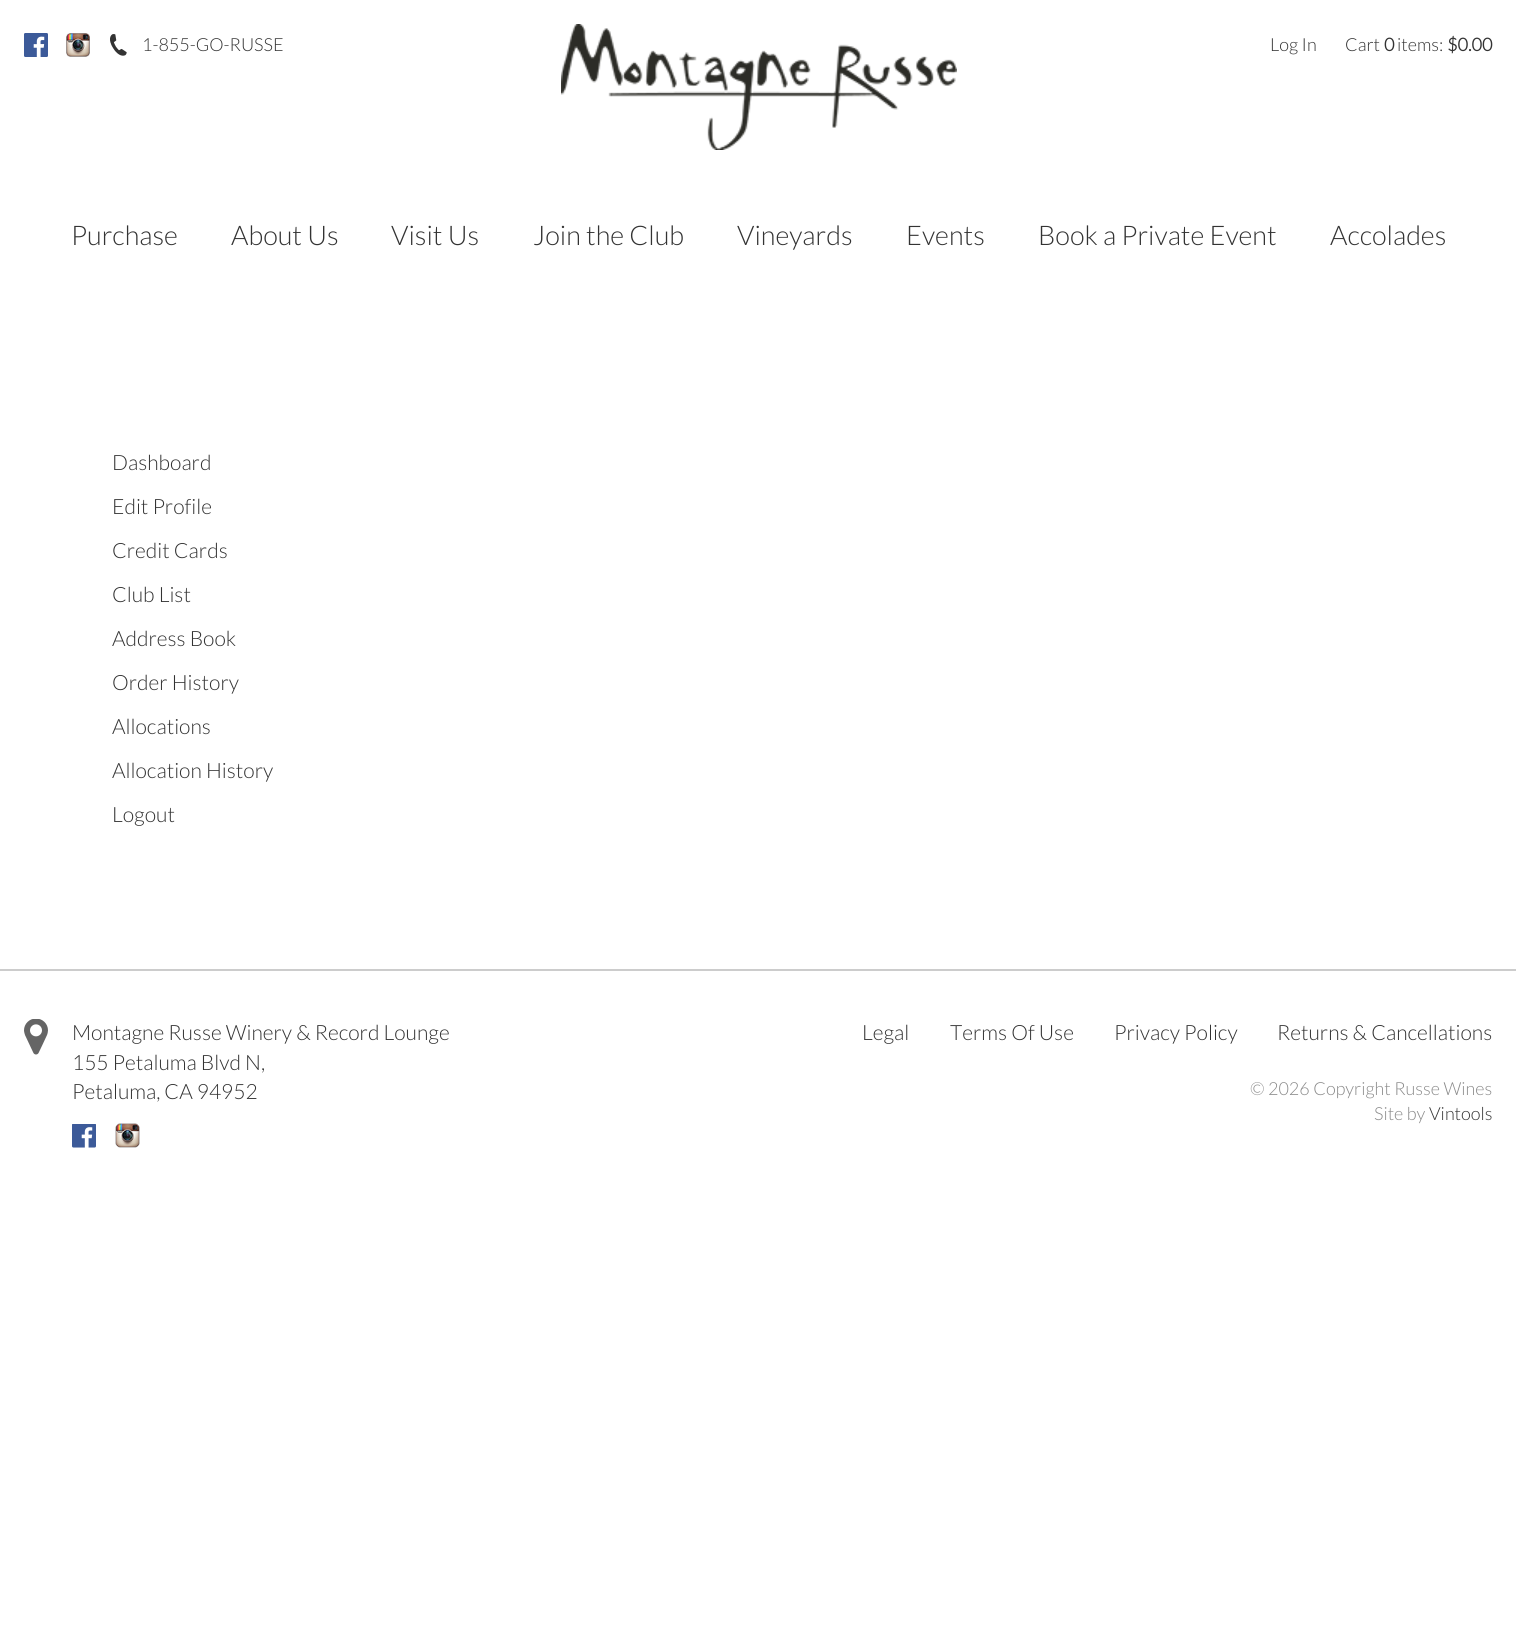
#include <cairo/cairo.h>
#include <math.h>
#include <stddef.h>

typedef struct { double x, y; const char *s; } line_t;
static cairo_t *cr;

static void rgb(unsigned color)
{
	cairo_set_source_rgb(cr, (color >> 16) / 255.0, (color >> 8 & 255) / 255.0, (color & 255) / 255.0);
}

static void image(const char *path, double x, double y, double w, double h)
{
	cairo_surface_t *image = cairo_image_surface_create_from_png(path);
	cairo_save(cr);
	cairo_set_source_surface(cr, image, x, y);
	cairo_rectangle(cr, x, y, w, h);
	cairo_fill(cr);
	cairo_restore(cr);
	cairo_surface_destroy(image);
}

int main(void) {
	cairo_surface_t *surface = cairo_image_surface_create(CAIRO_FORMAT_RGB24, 1516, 1629);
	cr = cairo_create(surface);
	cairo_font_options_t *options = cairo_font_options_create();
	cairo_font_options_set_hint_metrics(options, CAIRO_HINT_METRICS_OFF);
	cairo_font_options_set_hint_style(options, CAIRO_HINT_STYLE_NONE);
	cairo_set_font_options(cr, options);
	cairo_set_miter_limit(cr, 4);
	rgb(0xffffff);
	cairo_paint(cr);
	image("img/1.png", 24, 33, 24, 24);
	image("img/2.png", 66, 33, 24, 24);
	image("img/3.png", 110, 34, 17, 22);
	image("img/4.png", 561, 24, 396, 126);
	rgb(0xcccccc);
	cairo_rectangle(cr, 0, 969, 1516, 2);
	cairo_fill(cr);
	image("img/5.png", 24, 1019, 24, 36);
	image("img/6.png", 72, 1124, 24, 24);
	image("img/7.png", 115, 1123, 25, 25);
	cairo_select_font_face(cr, "Lato Light", CAIRO_FONT_SLANT_NORMAL, CAIRO_FONT_WEIGHT_NORMAL);
	cairo_set_font_size(cr, 18);
	rgb(0x333333);
	{
		static const line_t items[] = {
			{142, 51, "1-855-GO-RUSSE"},
			{1270, 51, "Log In"},
			{1345, 51, "Cart"},
		};
		for (size_t i = 0; i < sizeof items / sizeof *items; i++) {
			cairo_move_to(cr, items[i].x, items[i].y);
			cairo_show_text(cr, items[i].s);
		}
	}
	cairo_select_font_face(cr, "Lato", CAIRO_FONT_SLANT_NORMAL, CAIRO_FONT_WEIGHT_BOLD);
	cairo_move_to(cr, 1384, 51);
	cairo_show_text(cr, "0");
	cairo_select_font_face(cr, "Lato Light", CAIRO_FONT_SLANT_NORMAL, CAIRO_FONT_WEIGHT_NORMAL);
	cairo_move_to(cr, 1397, 51);
	cairo_show_text(cr, "items:");
	cairo_select_font_face(cr, "Lato", CAIRO_FONT_SLANT_NORMAL, CAIRO_FONT_WEIGHT_BOLD);
	cairo_move_to(cr, 1447, 51);
	cairo_show_text(cr, "$0.00");
	cairo_select_font_face(cr, "Lato Light", CAIRO_FONT_SLANT_NORMAL, CAIRO_FONT_WEIGHT_NORMAL);
	cairo_set_font_size(cr, 27);
	{
		static const line_t items[] = {
			{71, 245, "Purchase"},
			{231, 245, "About Us"},
			{391, 245, "Visit Us"},
			{533, 245, "Join the Club"},
			{737, 245, "Vineyards"},
			{906, 245, "Events"},
			{1038, 245, "Book a Private Event"},
			{1330, 245, "Accolades"},
		};
		for (size_t i = 0; i < sizeof items / sizeof *items; i++) {
			cairo_move_to(cr, items[i].x, items[i].y);
			cairo_show_text(cr, items[i].s);
		}
	}
	cairo_set_font_size(cr, 21);
	{
		static const line_t items[] = {
			{112, 470, "Dashboard"},
			{112, 514, "Edit Profile"},
			{112, 558, "Credit Cards"},
			{112, 602, "Club List"},
			{112, 646, "Address Book"},
			{112, 690, "Order History"},
			{112, 734, "Allocations"},
			{112, 778, "Allocation History"},
			{112, 822, "Logout"},
			{72, 1040, "Montagne Russe Winery & Record Lounge"},
			{72, 1070, "155 Petaluma Blvd N,"},
			{72, 1099, "Petaluma, CA 94952"},
			{862, 1040, "Legal"},
			{950, 1040, "Terms Of Use"},
			{1114, 1040, "Privacy Policy"},
			{1277, 1040, "Returns & Cancellations"},
		};
		for (size_t i = 0; i < sizeof items / sizeof *items; i++) {
			cairo_move_to(cr, items[i].x, items[i].y);
			cairo_show_text(cr, items[i].s);
		}
	}
	cairo_set_font_size(cr, 18);
	rgb(0x8a8a8a);
	cairo_move_to(cr, 1250, 1095);
	cairo_show_text(cr, "© 2026 Copyright Russe Wines");
	cairo_move_to(cr, 1374, 1120);
	cairo_show_text(cr, "Site by");
	rgb(0x333333);
	cairo_move_to(cr, 1429, 1120);
	cairo_show_text(cr, "Vintools");
	cairo_surface_write_to_png(surface, "page.png");
	cairo_font_options_destroy(options);
	cairo_destroy(cr);
	cairo_surface_destroy(surface);
	return 0;
}
